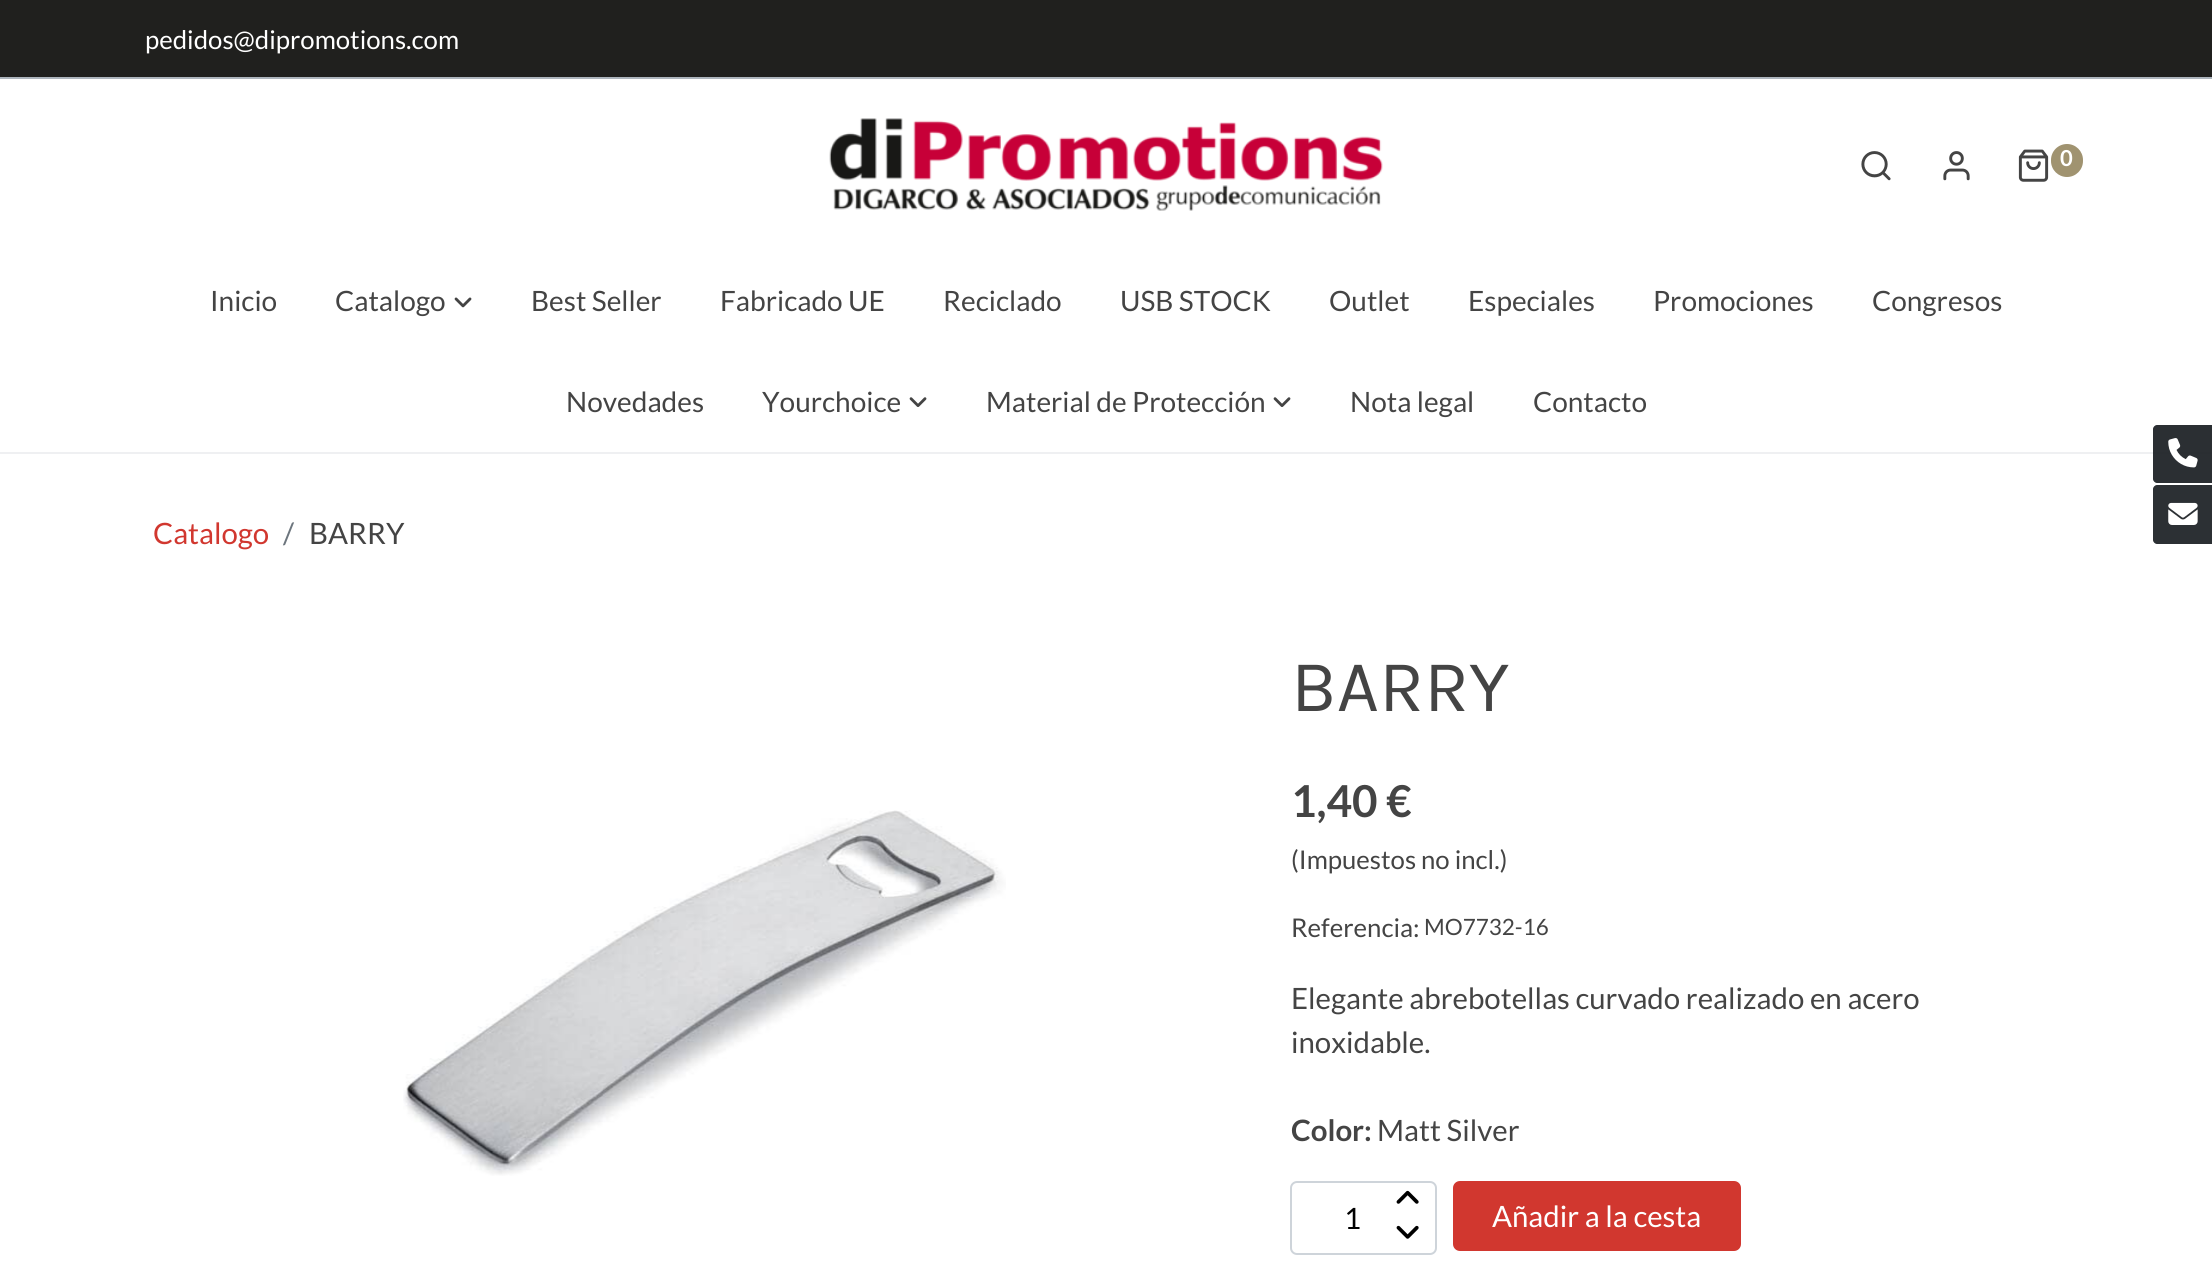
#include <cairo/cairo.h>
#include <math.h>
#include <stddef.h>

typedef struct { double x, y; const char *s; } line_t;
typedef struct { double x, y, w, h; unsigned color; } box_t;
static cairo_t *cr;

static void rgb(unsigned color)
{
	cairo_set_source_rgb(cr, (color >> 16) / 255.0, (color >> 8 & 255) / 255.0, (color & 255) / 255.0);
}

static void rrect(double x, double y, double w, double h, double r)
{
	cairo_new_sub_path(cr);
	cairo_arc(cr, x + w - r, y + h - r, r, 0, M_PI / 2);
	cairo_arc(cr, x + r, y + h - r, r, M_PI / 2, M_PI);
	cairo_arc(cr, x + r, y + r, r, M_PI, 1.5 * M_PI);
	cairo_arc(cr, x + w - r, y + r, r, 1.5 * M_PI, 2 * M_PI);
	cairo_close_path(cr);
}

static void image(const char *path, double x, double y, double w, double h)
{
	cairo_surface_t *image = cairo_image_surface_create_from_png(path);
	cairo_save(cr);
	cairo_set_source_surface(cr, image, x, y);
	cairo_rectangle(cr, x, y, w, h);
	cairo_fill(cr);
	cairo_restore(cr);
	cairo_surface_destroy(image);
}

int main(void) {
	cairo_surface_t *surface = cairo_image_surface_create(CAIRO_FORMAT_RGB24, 2212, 1282);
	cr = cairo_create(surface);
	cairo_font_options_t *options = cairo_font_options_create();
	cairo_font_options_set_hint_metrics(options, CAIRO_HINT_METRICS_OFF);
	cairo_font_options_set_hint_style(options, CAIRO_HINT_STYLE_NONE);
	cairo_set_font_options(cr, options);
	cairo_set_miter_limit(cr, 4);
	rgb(0xffffff);
	cairo_paint(cr);
	{
		static const box_t items[] = {
			{0, 452, 2212, 2, 0xeff0f2},
			{0, 77, 2212, 2, 0xadb5bd},
			{0, 0, 2212, 77, 0x20201e},
		};
		for (size_t i = 0; i < sizeof items / sizeof *items; i++) {
			rgb(items[i].color);
			cairo_rectangle(cr, items[i].x, items[i].y, items[i].w, items[i].h);
			cairo_fill(cr);
		}
	}
	image("img/1.png", 829, 118, 554, 93);
	image("img/2.png", 1861, 151, 30, 30);
	image("img/3.png", 1943, 151, 27, 30);
	image("img/4.png", 2018, 149, 31, 33);
	rgb(0xa09370);
	rrect(2051, 144, 32, 33, 16);
	cairo_fill(cr);
	image("img/5.png", 454, 297, 18, 11);
	image("img/6.png", 909, 397, 18, 10);
	image("img/6.png", 1273, 397, 18, 10);
	image("img/7.png", 403, 810, 603, 366);
	rrect(1291, 1182, 145, 72, 6);
	rgb(0xced4da);
	cairo_stroke(cr);
	image("img/8.png", 1396, 1190, 23, 14);
	image("img/9.png", 1396, 1225, 23, 14);
	rgb(0xd1372f);
	rrect(1454, 1182, 286, 68, 6);
	cairo_fill_preserve(cr);
	cairo_stroke(cr);
	cairo_set_source_rgba(cr, 0.129, 0.145, 0.161, 0.95);
	cairo_new_path(cr);
	cairo_move_to(cr, 2157, 425);
	cairo_line_to(cr, 2212, 425);
	cairo_line_to(cr, 2212, 483);
	cairo_line_to(cr, 2157, 483);
	cairo_curve_to(cr, 2155, 483, 2153, 481, 2153, 479);
	cairo_line_to(cr, 2153, 429);
	cairo_curve_to(cr, 2153, 427, 2155, 425, 2157, 425);
	cairo_close_path(cr);
	cairo_fill(cr);
	image("img/10.png", 2168, 438, 30, 30);
	rgb(0x2c3034);
	cairo_new_path(cr);
	cairo_move_to(cr, 2157, 485);
	cairo_line_to(cr, 2212, 485);
	cairo_line_to(cr, 2212, 544);
	cairo_line_to(cr, 2157, 544);
	cairo_curve_to(cr, 2155, 544, 2153, 542, 2153, 540);
	cairo_line_to(cr, 2153, 489);
	cairo_curve_to(cr, 2153, 487, 2155, 485, 2157, 485);
	cairo_close_path(cr);
	cairo_fill(cr);
	image("img/11.png", 2168, 502, 30, 23);
	cairo_select_font_face(cr, "Lato", CAIRO_FONT_SLANT_NORMAL, CAIRO_FONT_WEIGHT_NORMAL);
	cairo_set_font_size(cr, 25.75);
	rgb(0xffffff);
	cairo_move_to(cr, 145, 49);
	cairo_show_text(cr, "pedidos@dipromotions.com");
	cairo_select_font_face(cr, "Lato", CAIRO_FONT_SLANT_NORMAL, CAIRO_FONT_WEIGHT_BOLD);
	cairo_set_font_size(cr, 22);
	cairo_move_to(cr, 2060, 166);
	cairo_show_text(cr, "0");
	cairo_select_font_face(cr, "Lato", CAIRO_FONT_SLANT_NORMAL, CAIRO_FONT_WEIGHT_NORMAL);
	cairo_set_font_size(cr, 28);
	rgb(0x444444);
	{
		static const line_t items[] = {
			{210, 311, "Inicio"},
			{335, 311, "Catalogo"},
			{531, 311, "Best Seller"},
			{720, 311, "Fabricado UE"},
			{943, 311, "Reciclado"},
			{1120, 311, "USB STOCK"},
			{1329, 311, "Outlet"},
			{1468, 311, "Especiales"},
			{1653, 311, "Promociones"},
			{1872, 311, "Congresos"},
			{566, 412, "Novedades"},
			{762, 412, "Yourchoice"},
			{986, 412, "Material de Protección"},
			{1350, 412, "Nota legal"},
			{1533, 412, "Contacto"},
		};
		for (size_t i = 0; i < sizeof items / sizeof *items; i++) {
			cairo_move_to(cr, items[i].x, items[i].y);
			cairo_show_text(cr, items[i].s);
		}
	}
	cairo_set_font_size(cr, 29.4);
	rgb(0xd1372f);
	cairo_move_to(cr, 153, 544);
	cairo_show_text(cr, "Catalogo");
	rgb(0x6c757d);
	cairo_move_to(cr, 283, 544);
	cairo_show_text(cr, "/");
	rgb(0x444444);
	cairo_move_to(cr, 309, 544);
	cairo_show_text(cr, "BARRY");
	cairo_select_font_face(cr, "Karla", CAIRO_FONT_SLANT_NORMAL, CAIRO_FONT_WEIGHT_NORMAL);
	cairo_set_font_size(cr, 73.5);
	cairo_move_to(cr, 1291, 711);
	cairo_show_text(cr, "BARRY");
	cairo_select_font_face(cr, "Lato", CAIRO_FONT_SLANT_NORMAL, CAIRO_FONT_WEIGHT_BOLD);
	cairo_set_font_size(cr, 44);
	cairo_move_to(cr, 1291, 817);
	cairo_show_text(cr, "1,40 €");
	cairo_select_font_face(cr, "Lato", CAIRO_FONT_SLANT_NORMAL, CAIRO_FONT_WEIGHT_NORMAL);
	cairo_set_font_size(cr, 25.75);
	cairo_move_to(cr, 1291, 869);
	cairo_show_text(cr, "(Impuestos no incl.)");
	cairo_move_to(cr, 1291, 937);
	cairo_show_text(cr, "Referencia:");
	cairo_set_font_size(cr, 22.5);
	cairo_move_to(cr, 1424, 935);
	cairo_show_text(cr, "MO7732-16");
	cairo_set_font_size(cr, 29.4);
	cairo_move_to(cr, 1291, 1009);
	cairo_show_text(cr, "Elegante abrebotellas curvado realizado en acero");
	cairo_move_to(cr, 1291, 1053);
	cairo_show_text(cr, "inoxidable.");
	cairo_select_font_face(cr, "Lato", CAIRO_FONT_SLANT_NORMAL, CAIRO_FONT_WEIGHT_BOLD);
	cairo_move_to(cr, 1291, 1141);
	cairo_show_text(cr, "Color:");
	cairo_select_font_face(cr, "Lato", CAIRO_FONT_SLANT_NORMAL, CAIRO_FONT_WEIGHT_NORMAL);
	cairo_move_to(cr, 1377, 1141);
	cairo_show_text(cr, "Matt Silver");
	rgb(0x000000);
	cairo_move_to(cr, 1344, 1229);
	cairo_show_text(cr, "1");
	rgb(0xffffff);
	cairo_move_to(cr, 1492, 1227);
	cairo_show_text(cr, "Añadir a la cesta");
	cairo_surface_write_to_png(surface, "page.png");
	cairo_font_options_destroy(options);
	cairo_destroy(cr);
	cairo_surface_destroy(surface);
	return 0;
}
